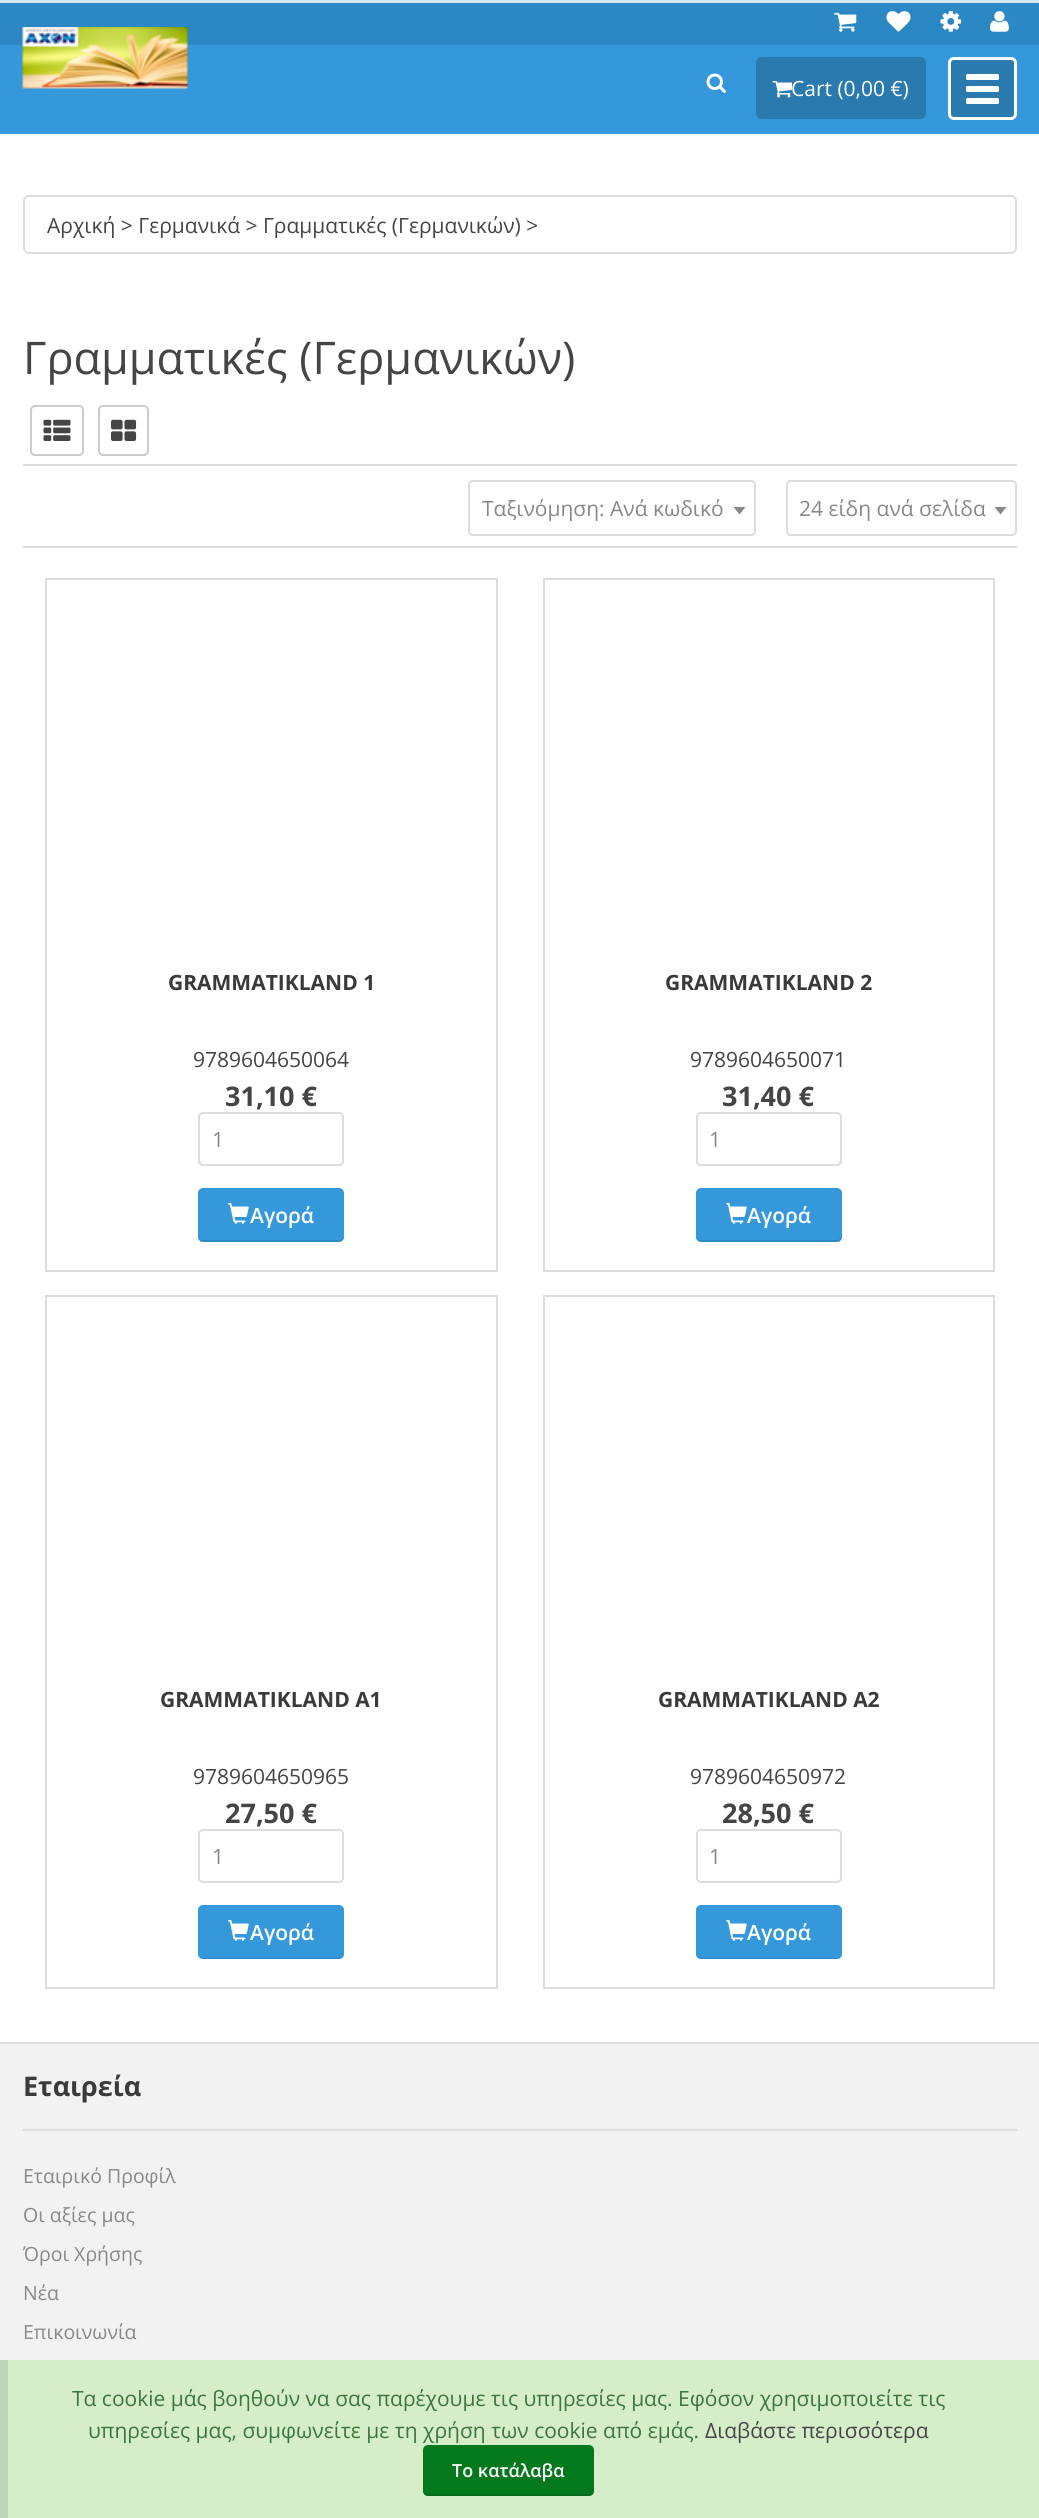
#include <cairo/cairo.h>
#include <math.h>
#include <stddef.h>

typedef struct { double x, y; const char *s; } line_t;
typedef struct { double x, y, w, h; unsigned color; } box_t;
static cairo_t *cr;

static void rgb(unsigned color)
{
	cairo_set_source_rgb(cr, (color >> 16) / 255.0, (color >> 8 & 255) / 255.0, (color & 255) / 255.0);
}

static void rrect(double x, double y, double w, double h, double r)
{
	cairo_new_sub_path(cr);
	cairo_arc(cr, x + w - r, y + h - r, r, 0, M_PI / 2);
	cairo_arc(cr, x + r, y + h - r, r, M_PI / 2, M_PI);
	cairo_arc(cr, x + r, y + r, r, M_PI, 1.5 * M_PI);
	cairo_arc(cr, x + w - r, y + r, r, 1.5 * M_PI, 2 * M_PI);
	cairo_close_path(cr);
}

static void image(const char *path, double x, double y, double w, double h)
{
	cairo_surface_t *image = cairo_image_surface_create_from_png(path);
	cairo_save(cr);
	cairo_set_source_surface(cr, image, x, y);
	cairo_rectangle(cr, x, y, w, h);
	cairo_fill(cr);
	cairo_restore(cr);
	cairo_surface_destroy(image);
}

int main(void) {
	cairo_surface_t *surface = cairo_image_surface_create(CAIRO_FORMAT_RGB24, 1039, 2518);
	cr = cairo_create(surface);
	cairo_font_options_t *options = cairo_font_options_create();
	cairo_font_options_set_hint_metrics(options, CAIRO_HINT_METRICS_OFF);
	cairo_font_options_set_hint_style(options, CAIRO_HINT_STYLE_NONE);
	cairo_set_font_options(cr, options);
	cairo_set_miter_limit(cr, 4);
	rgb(0xffffff);
	cairo_paint(cr);
	{
		static const box_t items[] = {
			{0, 0, 1039, 3, 0xd5e7f3},
			{0, 45, 1039, 89, 0x3498db},
			{0, 3, 1039, 42, 0x2c88c5},
		};
		for (size_t i = 0; i < sizeof items / sizeof *items; i++) {
			rgb(items[i].color);
			cairo_rectangle(cr, items[i].x, items[i].y, items[i].w, items[i].h);
			cairo_fill(cr);
		}
	}
	image("img/1.png", 834, 12, 23, 20);
	image("img/2.png", 886, 11, 25, 21);
	image("img/3.png", 940, 11, 22, 21);
	image("img/4.png", 990, 11, 19, 21);
	image("img/5.png", 22, 27, 166, 62);
	image("img/6.png", 706, 73, 20, 20);
	rgb(0x2a7aaf);
	rrect(756, 57, 170, 62, 6);
	cairo_fill(cr);
	image("img/7.png", 772, 81, 20, 17);
	rrect(949.5, 58.5, 66, 60, 4.5);
	cairo_fill_preserve(cr);
	rgb(0xffffff);
	cairo_set_line_width(cr, 3);
	cairo_stroke(cr);
	rrect(966, 74, 33, 6, 1.5);
	cairo_fill(cr);
	rrect(966, 86, 33, 6, 1.5);
	cairo_fill(cr);
	rrect(966, 98, 33, 6, 1.5);
	cairo_fill(cr);
	rrect(24, 196, 992, 57, 5);
	rgb(0xdddddd);
	cairo_set_line_width(cr, 2);
	cairo_stroke(cr);
	rrect(31, 406, 52, 49, 4);
	rgb(0xcccccc);
	cairo_stroke(cr);
	image("img/8.png", 43, 419, 28, 22);
	rrect(99, 406, 49, 49, 4);
	cairo_stroke(cr);
	image("img/9.png", 111, 419, 26, 22);
	rgb(0xdddddd);
	cairo_rectangle(cr, 23, 464, 994, 2);
	cairo_fill(cr);
	cairo_rectangle(cr, 23, 546, 994, 2);
	cairo_fill(cr);
	rrect(469, 481, 286, 54, 4);
	cairo_stroke(cr);
	rgb(0x888888);
	cairo_new_path(cr);
	cairo_move_to(cr, 733.5, 507);
	cairo_line_to(cr, 745.5, 507);
	cairo_line_to(cr, 739.5, 514.5);
	cairo_close_path(cr);
	cairo_fill(cr);
	rrect(787, 481, 229, 54, 4);
	rgb(0xdddddd);
	cairo_stroke(cr);
	rgb(0x888888);
	cairo_new_path(cr);
	cairo_move_to(cr, 994.5, 507);
	cairo_line_to(cr, 1006.5, 507);
	cairo_line_to(cr, 1000.5, 514.5);
	cairo_close_path(cr);
	cairo_fill(cr);
	cairo_rectangle(cr, 46, 579, 451, 692);
	rgb(0xdddddd);
	cairo_stroke(cr);
	rrect(199, 1113, 144, 52, 4);
	cairo_stroke(cr);
	rgb(0x3498db);
	rrect(198, 1188, 146, 54, 5);
	cairo_fill(cr);
	cairo_set_source_rgba(cr, 0, 0, 0, 0.1);
	cairo_new_path(cr);
	cairo_move_to(cr, 198, 1236);
	cairo_line_to(cr, 198, 1237);
	cairo_curve_to(cr, 198, 1240, 200, 1242, 203, 1242);
	cairo_line_to(cr, 339, 1242);
	cairo_curve_to(cr, 342, 1242, 344, 1240, 344, 1237);
	cairo_line_to(cr, 344, 1236);
	cairo_line_to(cr, 343, 1238);
	cairo_line_to(cr, 340, 1240);
	cairo_line_to(cr, 202, 1240);
	cairo_curve_to(cr, 200, 1240, 198, 1238, 198, 1236);
	cairo_close_path(cr);
	cairo_fill(cr);
	image("img/10.png", 228, 1203, 21, 21);
	cairo_rectangle(cr, 544, 579, 450, 692);
	rgb(0xdddddd);
	cairo_stroke(cr);
	rrect(697, 1113, 144, 52, 4);
	cairo_stroke(cr);
	rgb(0x3498db);
	rrect(696, 1188, 146, 54, 5);
	cairo_fill(cr);
	cairo_set_source_rgba(cr, 0, 0, 0, 0.1);
	cairo_new_path(cr);
	cairo_move_to(cr, 696, 1236);
	cairo_line_to(cr, 696, 1237);
	cairo_curve_to(cr, 696, 1240, 698, 1242, 701, 1242);
	cairo_line_to(cr, 837, 1242);
	cairo_curve_to(cr, 840, 1242, 842, 1240, 842, 1237);
	cairo_line_to(cr, 842, 1236);
	cairo_line_to(cr, 841, 1238);
	cairo_line_to(cr, 838, 1240);
	cairo_line_to(cr, 700, 1240);
	cairo_curve_to(cr, 698, 1240, 696, 1238, 696, 1236);
	cairo_close_path(cr);
	cairo_fill(cr);
	cairo_rectangle(cr, 46, 1296, 451, 692);
	rgb(0xdddddd);
	cairo_stroke(cr);
	rrect(199, 1830, 144, 52, 4);
	cairo_stroke(cr);
	rgb(0x3498db);
	rrect(198, 1905, 146, 54, 5);
	cairo_fill(cr);
	cairo_set_source_rgba(cr, 0, 0, 0, 0.1);
	cairo_new_path(cr);
	cairo_move_to(cr, 198, 1953);
	cairo_line_to(cr, 198, 1954);
	cairo_curve_to(cr, 198, 1957, 200, 1959, 203, 1959);
	cairo_line_to(cr, 339, 1959);
	cairo_curve_to(cr, 342, 1959, 344, 1957, 344, 1954);
	cairo_line_to(cr, 344, 1953);
	cairo_curve_to(cr, 344, 1955, 341, 1958, 339, 1958);
	cairo_line_to(cr, 202, 1958);
	cairo_curve_to(cr, 200, 1958, 198, 1955, 198, 1953);
	cairo_close_path(cr);
	cairo_fill(cr);
	image("img/10.png", 228, 1920, 21, 21);
	cairo_rectangle(cr, 544, 1296, 450, 692);
	rgb(0xdddddd);
	cairo_stroke(cr);
	rrect(697, 1830, 144, 52, 4);
	cairo_stroke(cr);
	rgb(0x3498db);
	rrect(696, 1905, 146, 54, 5);
	cairo_fill(cr);
	cairo_set_source_rgba(cr, 0, 0, 0, 0.1);
	cairo_new_path(cr);
	cairo_move_to(cr, 696, 1953);
	cairo_line_to(cr, 696, 1954);
	cairo_curve_to(cr, 696, 1957, 698, 1959, 701, 1959);
	cairo_line_to(cr, 837, 1959);
	cairo_curve_to(cr, 840, 1959, 842, 1957, 842, 1954);
	cairo_line_to(cr, 842, 1953);
	cairo_curve_to(cr, 842, 1955, 839, 1958, 837, 1958);
	cairo_line_to(cr, 700, 1958);
	cairo_curve_to(cr, 698, 1958, 696, 1955, 696, 1953);
	cairo_close_path(cr);
	cairo_fill(cr);
	{
		static const box_t items[] = {
			{0, 2044, 1039, 316, 0xf2f2f2},
			{0, 2042, 1039, 2, 0xdddddd},
			{23, 2129, 994, 2, 0xdddddd},
			{8, 2360, 1031, 158, 0xd5edc9},
			{0, 2360, 8, 158, 0xc0d5b5},
		};
		for (size_t i = 0; i < sizeof items / sizeof *items; i++) {
			rgb(items[i].color);
			cairo_rectangle(cr, items[i].x, items[i].y, items[i].w, items[i].h);
			cairo_fill(cr);
		}
	}
	rgb(0x04781d);
	rrect(423, 2445, 171, 51, 5);
	cairo_fill(cr);
	cairo_set_source_rgba(cr, 0, 0, 0, 0.1);
	cairo_new_path(cr);
	cairo_move_to(cr, 423, 2490);
	cairo_line_to(cr, 423, 2491);
	cairo_curve_to(cr, 423, 2494, 425, 2496, 428, 2496);
	cairo_line_to(cr, 589, 2496);
	cairo_curve_to(cr, 592, 2496, 594, 2494, 594, 2491);
	cairo_line_to(cr, 594, 2490);
	cairo_curve_to(cr, 594, 2492, 592, 2494, 590, 2494);
	cairo_line_to(cr, 428, 2494);
	cairo_curve_to(cr, 425, 2494, 423, 2492, 423, 2490);
	cairo_close_path(cr);
	cairo_fill(cr);
	cairo_select_font_face(cr, "Open Sans", CAIRO_FONT_SLANT_NORMAL, CAIRO_FONT_WEIGHT_NORMAL);
	cairo_set_font_size(cr, 21);
	rgb(0xffffff);
	cairo_move_to(cr, 791, 96);
	cairo_show_text(cr, "Cart (0,00 €)");
	rgb(0x454545);
	cairo_move_to(cr, 47, 233);
	cairo_show_text(cr, "Αρχική > Γερμανικά > Γραμματικές (Γερμανικών) >");
	cairo_set_font_size(cr, 45);
	cairo_move_to(cr, 23, 374);
	cairo_show_text(cr, "Γραμματικές (Γερμανικών)");
	cairo_set_font_size(cr, 21);
	rgb(0x888888);
	cairo_move_to(cr, 482, 516);
	cairo_show_text(cr, "Ταξινόμηση: Ανά κωδικό");
	cairo_move_to(cr, 799, 516);
	cairo_show_text(cr, "24 είδη ανά σελίδα");
	cairo_select_font_face(cr, "Open Sans", CAIRO_FONT_SLANT_NORMAL, CAIRO_FONT_WEIGHT_BOLD);
	rgb(0x3a3a3a);
	cairo_move_to(cr, 168, 990);
	cairo_show_text(cr, "GRAMMATIKLAND 1");
	cairo_select_font_face(cr, "Open Sans", CAIRO_FONT_SLANT_NORMAL, CAIRO_FONT_WEIGHT_NORMAL);
	rgb(0x454545);
	cairo_move_to(cr, 193, 1067);
	cairo_show_text(cr, "9789604650064");
	cairo_select_font_face(cr, "Open Sans", CAIRO_FONT_SLANT_NORMAL, CAIRO_FONT_WEIGHT_BOLD);
	cairo_set_font_size(cr, 27);
	cairo_move_to(cr, 225, 1106);
	cairo_show_text(cr, "31,10 €");
	cairo_select_font_face(cr, "Open Sans", CAIRO_FONT_SLANT_NORMAL, CAIRO_FONT_WEIGHT_NORMAL);
	cairo_set_font_size(cr, 21);
	rgb(0x888888);
	cairo_move_to(cr, 212, 1147);
	cairo_show_text(cr, "1");
	cairo_select_font_face(cr, "Open Sans SemiBold", CAIRO_FONT_SLANT_NORMAL, CAIRO_FONT_WEIGHT_NORMAL);
	rgb(0xffffff);
	cairo_move_to(cr, 250, 1223);
	cairo_show_text(cr, "Αγορά");
	cairo_select_font_face(cr, "Open Sans", CAIRO_FONT_SLANT_NORMAL, CAIRO_FONT_WEIGHT_BOLD);
	rgb(0x3a3a3a);
	cairo_move_to(cr, 665, 990);
	cairo_show_text(cr, "GRAMMATIKLAND 2");
	cairo_select_font_face(cr, "Open Sans", CAIRO_FONT_SLANT_NORMAL, CAIRO_FONT_WEIGHT_NORMAL);
	rgb(0x454545);
	cairo_move_to(cr, 690, 1067);
	cairo_show_text(cr, "9789604650071");
	cairo_select_font_face(cr, "Open Sans", CAIRO_FONT_SLANT_NORMAL, CAIRO_FONT_WEIGHT_BOLD);
	cairo_set_font_size(cr, 27);
	cairo_move_to(cr, 722, 1106);
	cairo_show_text(cr, "31,40 €");
	cairo_select_font_face(cr, "Open Sans", CAIRO_FONT_SLANT_NORMAL, CAIRO_FONT_WEIGHT_NORMAL);
	cairo_set_font_size(cr, 21);
	rgb(0x888888);
	cairo_move_to(cr, 709, 1147);
	cairo_show_text(cr, "1");
	cairo_select_font_face(cr, "Open Sans SemiBold", CAIRO_FONT_SLANT_NORMAL, CAIRO_FONT_WEIGHT_NORMAL);
	rgb(0xffffff);
	cairo_move_to(cr, 747, 1223);
	cairo_show_text(cr, "Αγορά");
	image("img/11.png", 726, 1203, 21, 21);
	cairo_select_font_face(cr, "Open Sans", CAIRO_FONT_SLANT_NORMAL, CAIRO_FONT_WEIGHT_BOLD);
	rgb(0x3a3a3a);
	cairo_move_to(cr, 160, 1707);
	cairo_show_text(cr, "GRAMMATIKLAND A1");
	cairo_select_font_face(cr, "Open Sans", CAIRO_FONT_SLANT_NORMAL, CAIRO_FONT_WEIGHT_NORMAL);
	rgb(0x454545);
	cairo_move_to(cr, 193, 1784);
	cairo_show_text(cr, "9789604650965");
	cairo_select_font_face(cr, "Open Sans", CAIRO_FONT_SLANT_NORMAL, CAIRO_FONT_WEIGHT_BOLD);
	cairo_set_font_size(cr, 27);
	cairo_move_to(cr, 225, 1823);
	cairo_show_text(cr, "27,50 €");
	cairo_select_font_face(cr, "Open Sans", CAIRO_FONT_SLANT_NORMAL, CAIRO_FONT_WEIGHT_NORMAL);
	cairo_set_font_size(cr, 21);
	rgb(0x888888);
	cairo_move_to(cr, 212, 1864);
	cairo_show_text(cr, "1");
	cairo_select_font_face(cr, "Open Sans SemiBold", CAIRO_FONT_SLANT_NORMAL, CAIRO_FONT_WEIGHT_NORMAL);
	rgb(0xffffff);
	cairo_move_to(cr, 250, 1940);
	cairo_show_text(cr, "Αγορά");
	cairo_select_font_face(cr, "Open Sans", CAIRO_FONT_SLANT_NORMAL, CAIRO_FONT_WEIGHT_BOLD);
	rgb(0x3a3a3a);
	cairo_move_to(cr, 658, 1707);
	cairo_show_text(cr, "GRAMMATIKLAND A2");
	cairo_select_font_face(cr, "Open Sans", CAIRO_FONT_SLANT_NORMAL, CAIRO_FONT_WEIGHT_NORMAL);
	rgb(0x454545);
	cairo_move_to(cr, 690, 1784);
	cairo_show_text(cr, "9789604650972");
	cairo_select_font_face(cr, "Open Sans", CAIRO_FONT_SLANT_NORMAL, CAIRO_FONT_WEIGHT_BOLD);
	cairo_set_font_size(cr, 27);
	cairo_move_to(cr, 722, 1823);
	cairo_show_text(cr, "28,50 €");
	cairo_select_font_face(cr, "Open Sans", CAIRO_FONT_SLANT_NORMAL, CAIRO_FONT_WEIGHT_NORMAL);
	cairo_set_font_size(cr, 21);
	rgb(0x888888);
	cairo_move_to(cr, 709, 1864);
	cairo_show_text(cr, "1");
	cairo_select_font_face(cr, "Open Sans SemiBold", CAIRO_FONT_SLANT_NORMAL, CAIRO_FONT_WEIGHT_NORMAL);
	rgb(0xffffff);
	cairo_move_to(cr, 747, 1940);
	cairo_show_text(cr, "Αγορά");
	image("img/11.png", 726, 1920, 21, 21);
	cairo_select_font_face(cr, "Open Sans", CAIRO_FONT_SLANT_NORMAL, CAIRO_FONT_WEIGHT_BOLD);
	cairo_set_font_size(cr, 27);
	rgb(0x3a3a3a);
	cairo_move_to(cr, 23, 2096);
	cairo_show_text(cr, "Εταιρεία");
	cairo_select_font_face(cr, "Open Sans", CAIRO_FONT_SLANT_NORMAL, CAIRO_FONT_WEIGHT_NORMAL);
	cairo_set_font_size(cr, 19.5);
	rgb(0x888888);
	{
		static const line_t items[] = {
			{23, 2183, "Εταιρικό Προφίλ"},
			{23, 2222, "Οι αξίες μας"},
			{23, 2261, "Όροι Χρήσης"},
			{23, 2300, "Νέα"},
			{23, 2339, "Επικοινωνία"},
		};
		for (size_t i = 0; i < sizeof items / sizeof *items; i++) {
			cairo_move_to(cr, items[i].x, items[i].y);
			cairo_show_text(cr, items[i].s);
		}
	}
	cairo_set_font_size(cr, 21);
	rgb(0x3c763d);
	cairo_move_to(cr, 72, 2406);
	cairo_show_text(cr, "Τα cookie μάς βοηθούν να σας παρέχουμε τις υπηρεσίες μας. Εφόσον χρησιμοποιείτε τις");
	cairo_move_to(cr, 88, 2438);
	cairo_show_text(cr, "υπηρεσίες μας, συμφωνείτε με τη χρήση των cookie από εμάς.");
	rgb(0x454545);
	cairo_move_to(cr, 705, 2438);
	cairo_show_text(cr, "Διαβάστε περισσότερα");
	cairo_select_font_face(cr, "Open Sans SemiBold", CAIRO_FONT_SLANT_NORMAL, CAIRO_FONT_WEIGHT_NORMAL);
	cairo_set_font_size(cr, 18);
	rgb(0xffffff);
	cairo_move_to(cr, 452, 2477);
	cairo_show_text(cr, "Το κατάλαβα");
	cairo_surface_write_to_png(surface, "page.png");
	cairo_font_options_destroy(options);
	cairo_destroy(cr);
	cairo_surface_destroy(surface);
	return 0;
}
